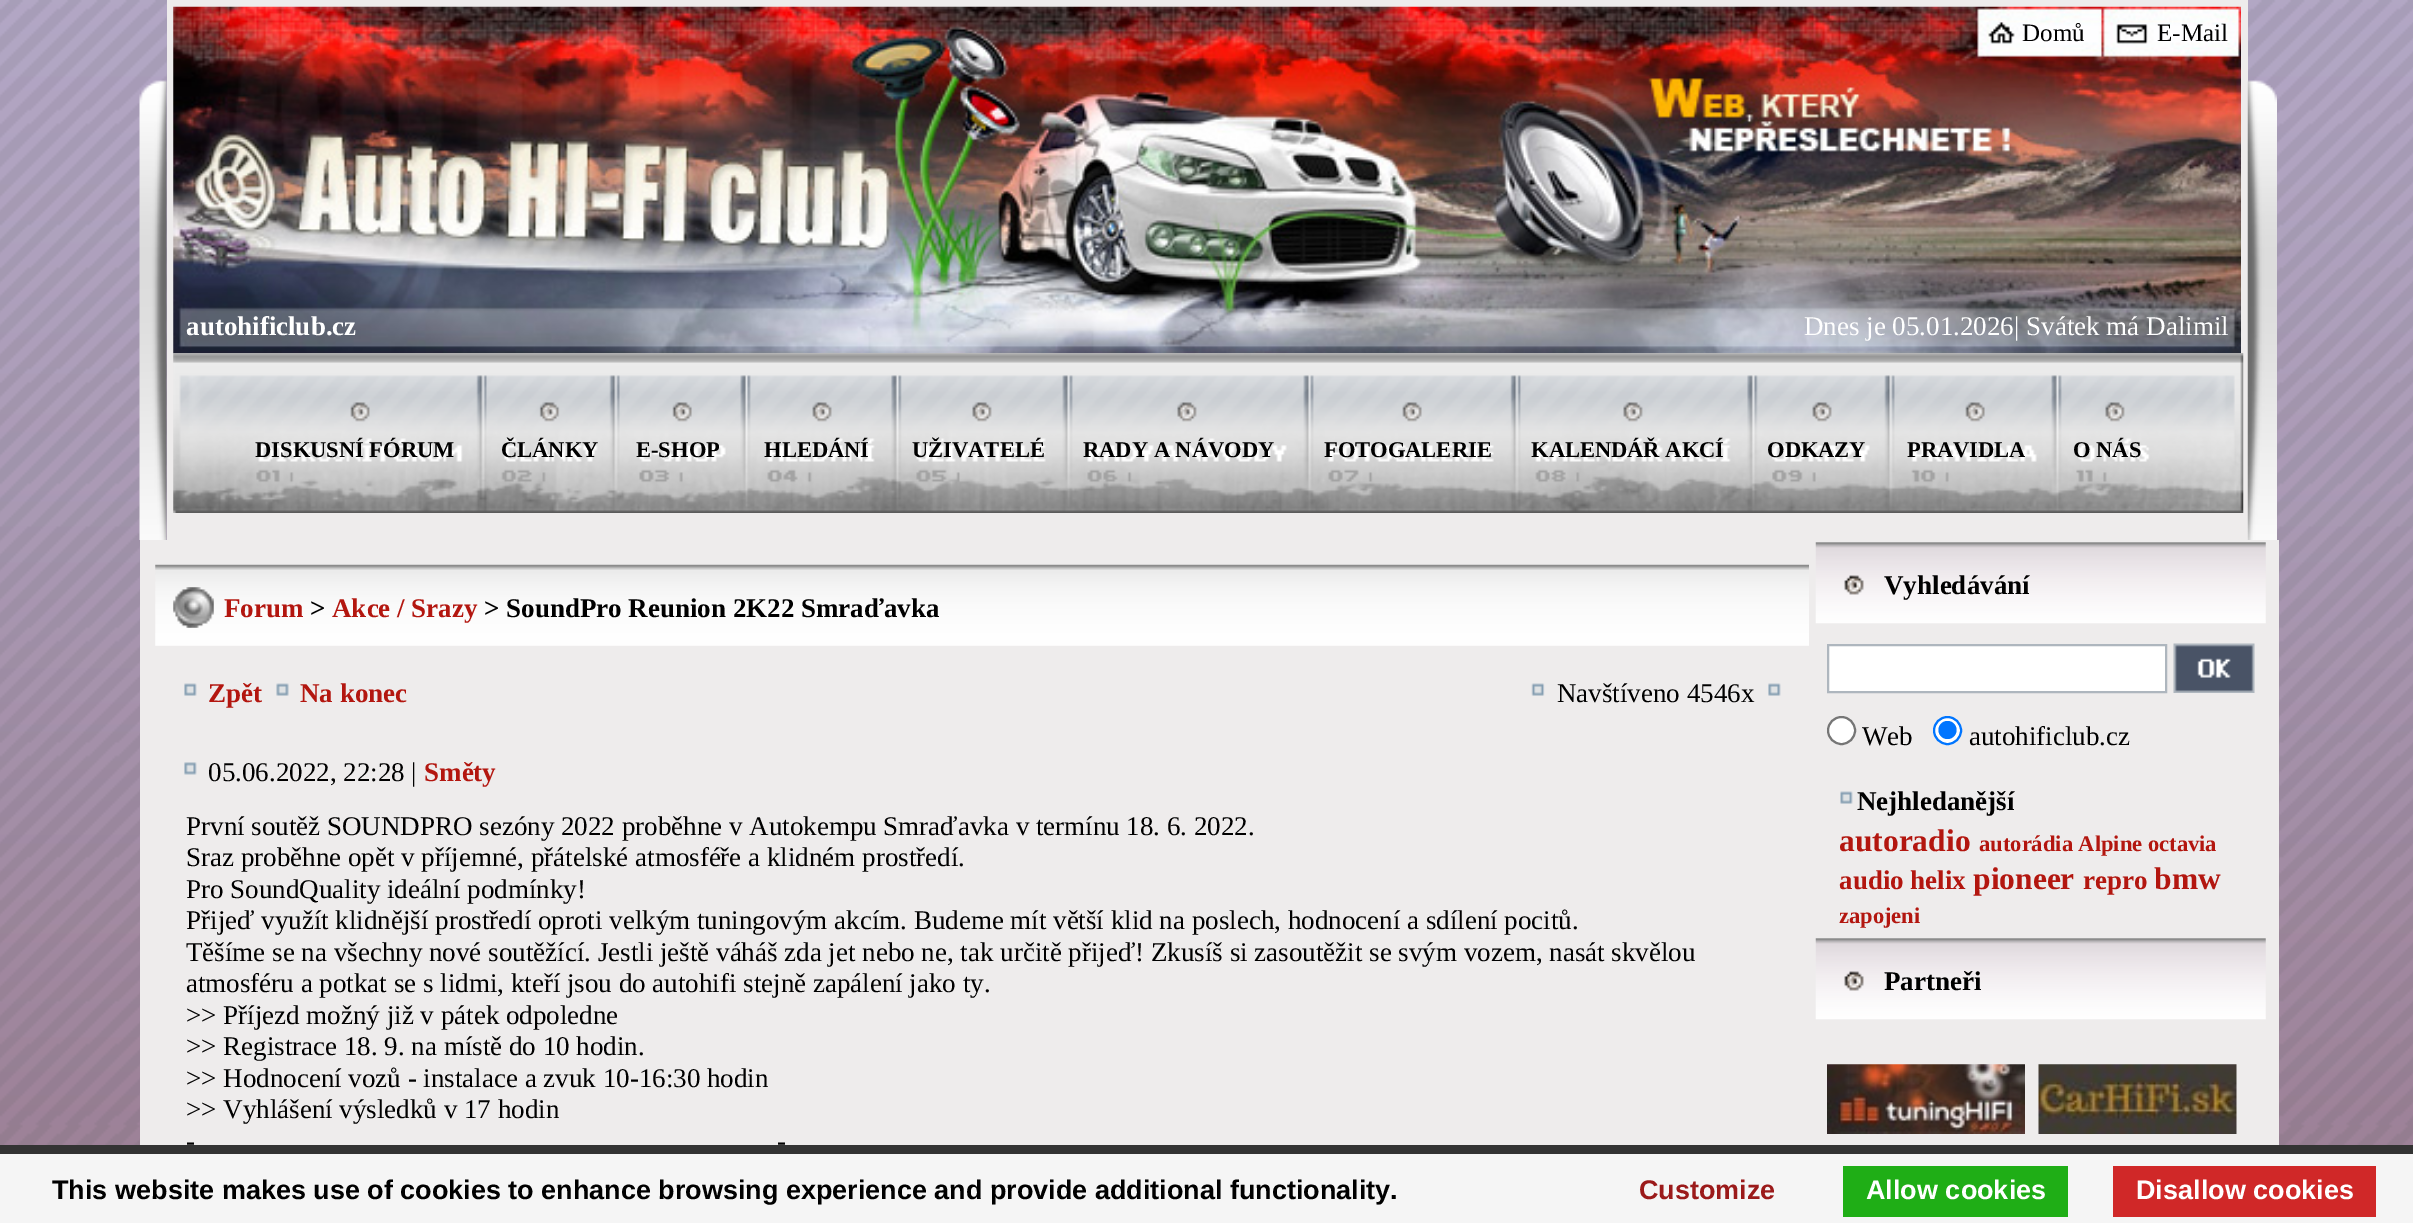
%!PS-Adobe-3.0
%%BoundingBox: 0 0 2413 1223
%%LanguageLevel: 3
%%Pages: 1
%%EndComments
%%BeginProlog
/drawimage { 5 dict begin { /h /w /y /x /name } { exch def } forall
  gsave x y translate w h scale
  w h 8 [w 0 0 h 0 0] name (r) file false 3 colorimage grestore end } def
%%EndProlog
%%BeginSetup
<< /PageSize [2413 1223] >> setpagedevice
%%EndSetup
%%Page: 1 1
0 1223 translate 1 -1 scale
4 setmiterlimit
1 setgray
0 0 2413 1223 rectfill
(images/1.raw) 0 0 2413 1145 drawimage
(images/2.raw) 139 80 28 460 drawimage
0.933 0.925 0.925 setrgbcolor
167 0 2081 540 rectfill
(images/3.raw) 173 6 2068 348 drawimage
(images/4.raw) 173 353 2071 160 drawimage
(images/5.raw) 2247 80 30 460 drawimage
140 540 2139 605 rectfill
(images/6.raw) 155 564 1654 82 drawimage
(images/7.raw) 173 587 41 41 drawimage
(images/8.raw) 184 683 13 13 drawimage
(images/9.raw) 276 683 13 13 drawimage
(images/10.raw) 1531 683 14 13 drawimage
(images/8.raw) 1768 683 13 13 drawimage
(images/11.raw) 184 762 13 13 drawimage
(images/12.raw) 1815 542 451 82 drawimage
(images/13.raw) 1844 575 20 20 drawimage
1 setgray
newpath 1828 645 moveto 2166 645 lineto 2166 692 lineto 1828 692 lineto closepath gsave fill grestore
0.682 0.714 0.745 setrgbcolor
2 setlinewidth
stroke
(images/14.raw) 2173 643 82 50 drawimage
1 setgray
newpath 1841.5 730.5 13.5 0 360 arc closepath gsave fill grestore
0.463 setgray
stroke
1 setgray
newpath 1947.5 730.5 13.5 0 360 arc closepath gsave fill grestore
0 0.459 1 setrgbcolor
stroke
newpath 1947.5 730 9 0 360 arc closepath fill
(images/15.raw) 1840 791 13 13 drawimage
(images/12.raw) 1815 938 451 82 drawimage
(images/16.raw) 1844 971 20 20 drawimage
(images/17.raw) 1827 1064 198 70 drawimage
(images/18.raw) 2038 1064 199 70 drawimage
0.961 setgray
0 1154 2413 69 rectfill
0.2 setgray
0 1145 2413 9 rectfill
0.122 0.682 0.086 setrgbcolor
1843 1166 225 51 rectfill
0.816 0.157 0.157 setrgbcolor
2113 1166 263 51 rectfill
/LiberationSerif-Regular [25 0 0 -25 0 0] selectfont
0 setgray
2022 41 moveto (Domů) show
2157 41 moveto (E-Mail) show
/LiberationSerif-Bold [27 0 0 -27 0 0] selectfont
1 setgray
186 335 moveto (autohificlub.cz) show
/LiberationSerif-Regular [27 0 0 -27 0 0] selectfont
1804 335 moveto (Dnes je 05.01.2026| Svátek má Dalimil) show
/LiberationSerif-Bold [22.5 0 0 -22.5 0 0] selectfont
0 setgray
255 457 moveto (DISKUSNÍ FÓRUM) show
501 457 moveto (ČLÁNKY) show
636 457 moveto (E-SHOP) show
764 457 moveto (HLEDÁNÍ) show
912 457 moveto (UŽIVATELÉ) show
1083 457 moveto (RADY A NÁVODY) show
1324 457 moveto (FOTOGALERIE) show
1531 457 moveto (KALENDÁŘ AKCÍ) show
1767 457 moveto (ODKAZY) show
1907 457 moveto (PRAVIDLA) show
2073 457 moveto (O NÁS) show
/LiberationSerif-Bold [27 0 0 -27 0 0] selectfont
0.702 0.086 0.059 setrgbcolor
224 617 moveto (Forum) show
0 setgray
310 617 moveto (>) show
0.702 0.086 0.059 setrgbcolor
332 617 moveto (Akce / Srazy) show
0 setgray
484 617 moveto (> SoundPro Reunion 2K22 Smraďavka) show
0.702 0.086 0.059 setrgbcolor
208 702 moveto (Zpět) show
300 702 moveto (Na konec) show
/LiberationSerif-Regular [27 0 0 -27 0 0] selectfont
0 setgray
1557 702 moveto (Navštíveno 4546x) show
208 781 moveto (05.06.2022, 22:28 |) show
/LiberationSerif-Bold [27 0 0 -27 0 0] selectfont
0.702 0.086 0.059 setrgbcolor
424 781 moveto (Směty) show
/LiberationSerif-Regular [27 0 0 -27 0 0] selectfont
0 setgray
186 835 moveto (První soutěž SOUNDPRO sezóny 2022 proběhne v Autokempu Smraďavka v termínu 18. 6. 2022.) show
186 866 moveto (Sraz proběhne opět v příjemné, přátelské atmosféře a klidném prostředí.) show
186 898 moveto (Pro SoundQuality ideální podmínky!) show
186 929 moveto (Přijeď využít klidnější prostředí oproti velkým tuningovým akcím. Budeme mít větší klid na poslech, hodnocení a sdílení pocitů.) show
186 961 moveto (Těšíme se na všechny nové soutěžící. Jestli ještě váháš zda jet nebo ne, tak určitě přijeď! Zkusíš si zasoutěžit se svým vozem, nasát skvělou) show
186 992 moveto (atmosféru a potkat se s lidmi, kteří jsou do autohifi stejně zapálení jako ty.) show
186 1024 moveto (>> Příjezd možný již v pátek odpoledne) show
186 1055 moveto (>> Registrace 18. 9. na místě do 10 hodin.) show
186 1087 moveto (>> Hodnocení vozů - instalace a zvuk 10-16:30 hodin) show
186 1118 moveto (>> Vyhlášení výsledků v 17 hodin) show
186 1150 moveto (-) show
777 1150 moveto (-) show
/LiberationSerif-Bold [27 0 0 -27 0 0] selectfont
1884 594 moveto (Vyhledávání) show
/LiberationSerif-Regular [27 0 0 -27 0 0] selectfont
1862 745 moveto (Web) show
1969 745 moveto (autohificlub.cz) show
/LiberationSerif-Bold [27 0 0 -27 0 0] selectfont
1857 810 moveto (Nejhledanější) show
/LiberationSerif-Bold [31.5 0 0 -31.5 0 0] selectfont
0.702 0.086 0.059 setrgbcolor
1839 851 moveto (autoradio) show
/LiberationSerif-Bold [22.5 0 0 -22.5 0 0] selectfont
1979 851 moveto (autorádia Alpine) show
2148 851 moveto (octavia) show
/LiberationSerif-Bold [27 0 0 -27 0 0] selectfont
1839 889 moveto (audio helix) show
/LiberationSerif-Bold [31.5 0 0 -31.5 0 0] selectfont
1973 889 moveto (pioneer) show
/LiberationSerif-Bold [27 0 0 -27 0 0] selectfont
2083 889 moveto (repro) show
/LiberationSerif-Bold [31.5 0 0 -31.5 0 0] selectfont
2154 889 moveto (bmw) show
/LiberationSerif-Bold [22.5 0 0 -22.5 0 0] selectfont
1839 923 moveto (zapojeni) show
/LiberationSerif-Bold [27 0 0 -27 0 0] selectfont
0 setgray
1884 990 moveto (Partneři) show
/LiberationSans-Bold [27 0 0 -27 0 0] selectfont
52 1199 moveto (This website makes use of cookies to enhance browsing experience and provide additional functionality.) show
0.608 0.102 0.102 setrgbcolor
1639 1199 moveto (Customize) show
1 setgray
1866 1199 moveto (Allow cookies) show
2136 1199 moveto (Disallow cookies) show
showpage
%%EOF
